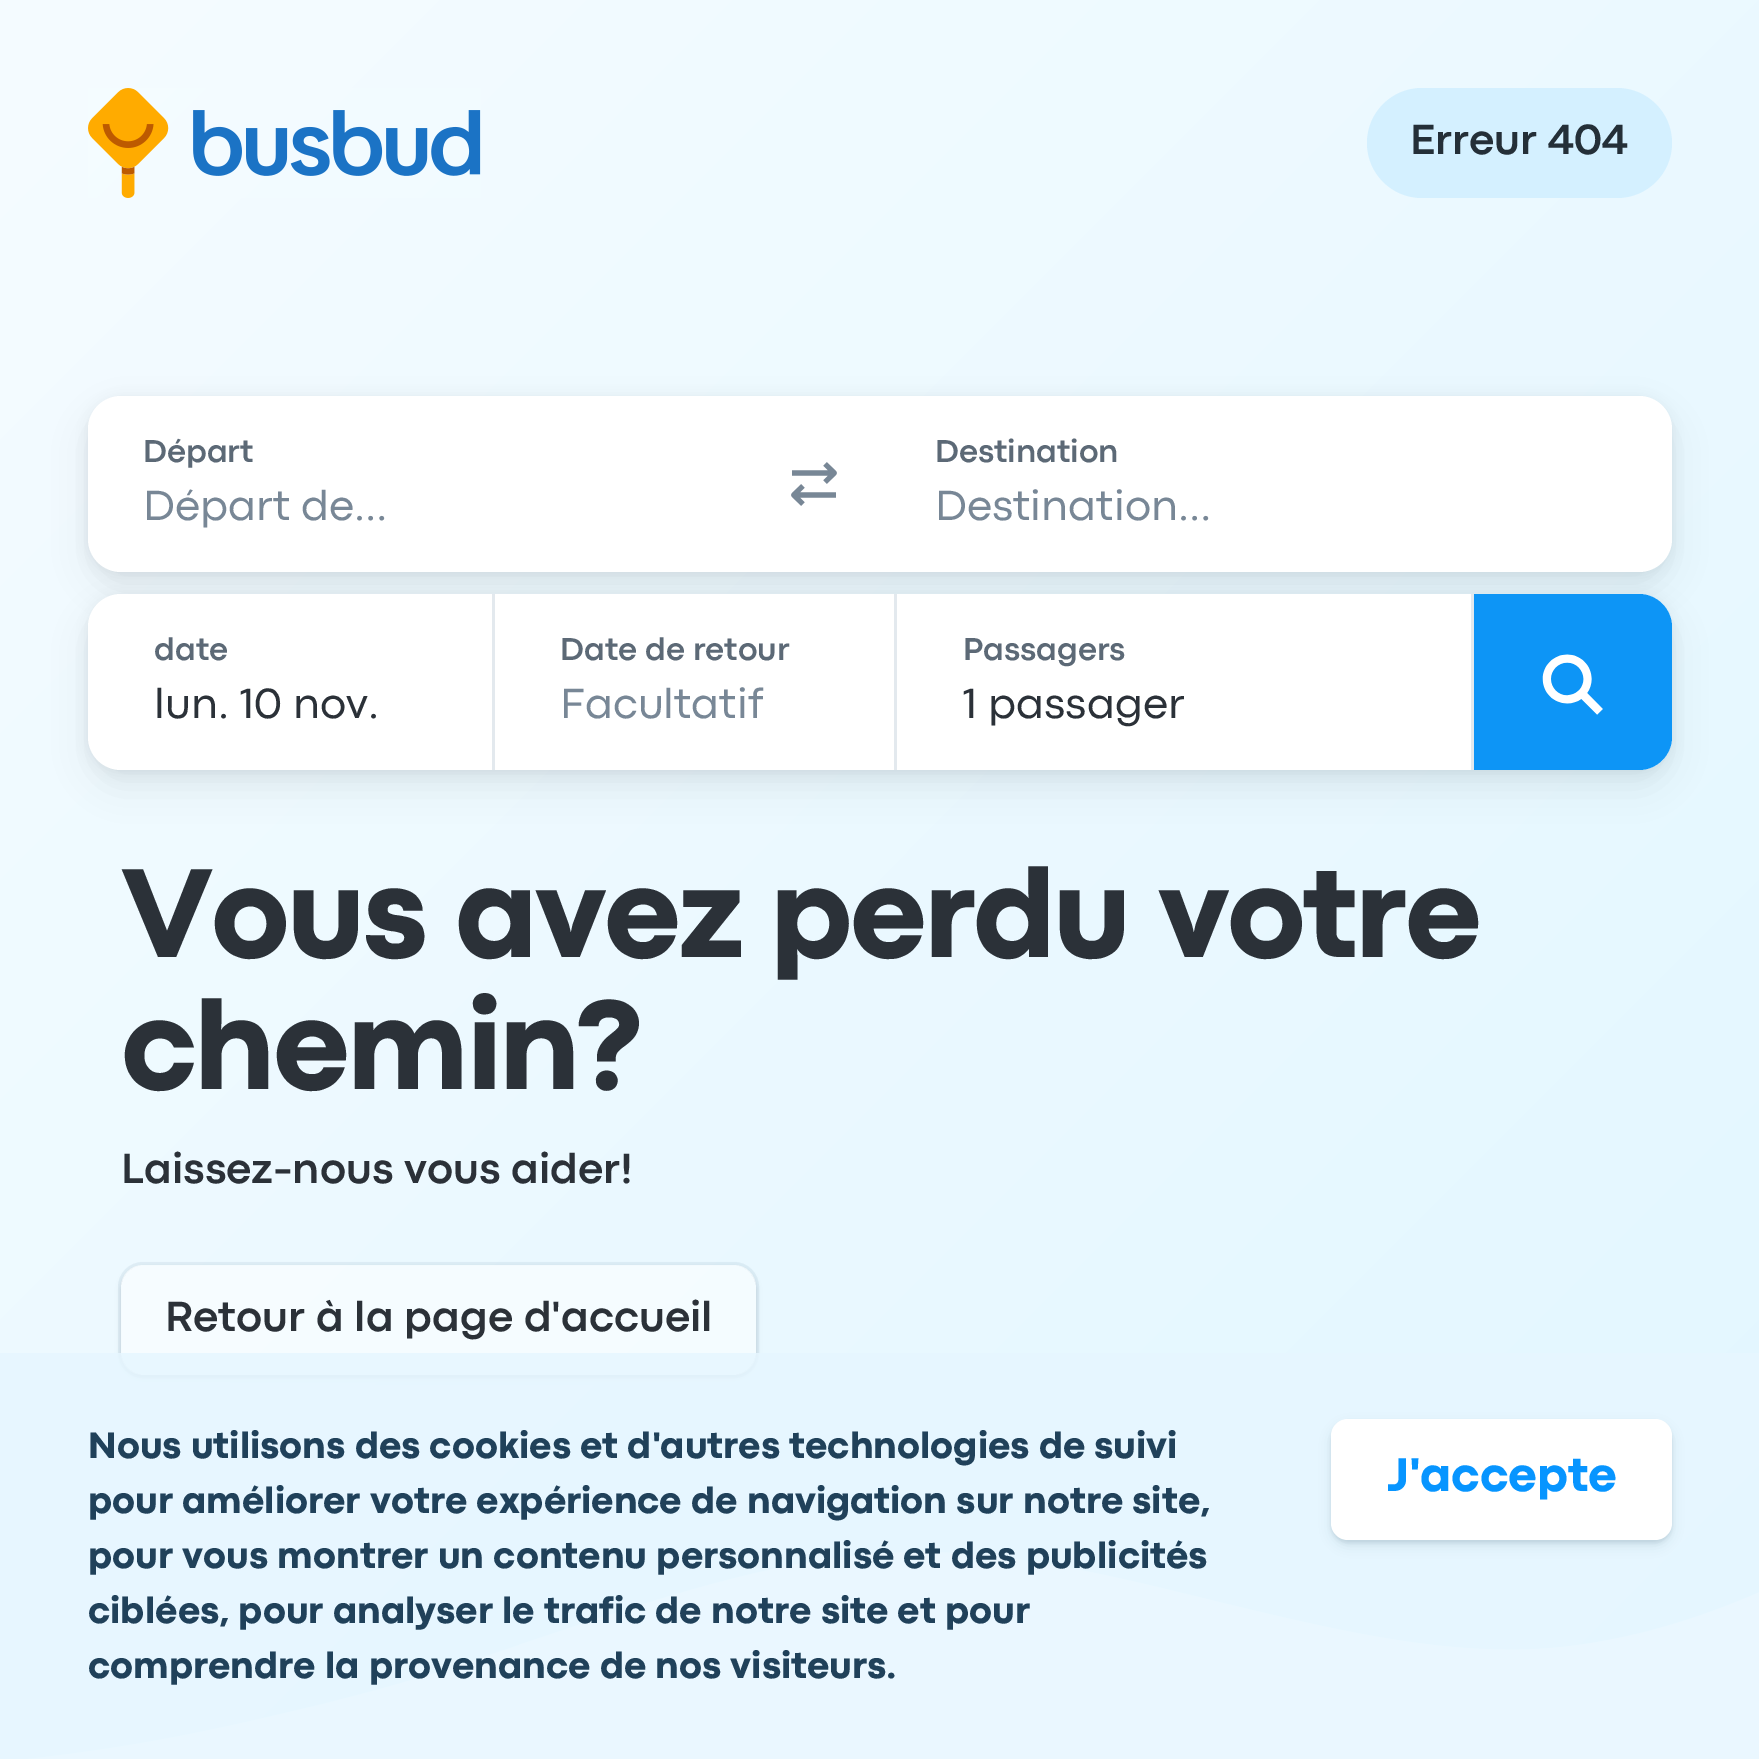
%!PS-Adobe-3.0
%%BoundingBox: 0 0 1759 1759
%%LanguageLevel: 3
%%Pages: 1
%%EndComments
%%BeginProlog
/setalpha { dup .setfillconstantalpha .setstrokeconstantalpha } def
/rrect { 5 dict begin { /r /h /w /y /x } { exch def } forall
  x r add y moveto x w add y 2 copy h add r arct x w add y h add x 1 index r arct
  x y h add x y r arct x y 2 copy exch w add exch r arct closepath end } def
/softshadow { 12 dict begin { /a /b /q /h /w /y /x } { exch def } forall gsave /was 0 def
  9 -2 -9 { dup b mul 4 div /e exch def 1 sub .425 mul 2.718 exch exp 1 add a .99 .min exch div /now exch def
    1 1 now sub 1 was sub div sub setalpha /was now def
    w h .min e 2 mul add 0 gt { x e sub y e sub w e 2 mul add h e 2 mul add
      q e add b .6 mul add w h .min 2 div e add .min 0 .max rrect fill } if } for grestore end } def
/drawimage { 5 dict begin { /h /w /y /x /name } { exch def } forall
  gsave x y translate w h scale
  w h 8 [w 0 0 h 0 0] name (r) file false 3 colorimage grestore end } def
%%EndProlog
%%BeginSetup
<< /PageSize [1759 1759] /PageUsesTransparency true >> setpagedevice
%%EndSetup
%%Page: 1 1
0 .pushpdf14devicefilter
0 1759 translate 1 -1 scale
4 setmiterlimit
1 setgray
0 0 1759 1759 rectfill
gsave newpath 0 0 moveto 1759 0 lineto 1759 1759 lineto 0 1759 lineto closepath clip newpath
<< /ShadingType 2 /ColorSpace /DeviceRGB /Coords [-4.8 4.8 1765 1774] /Extend [true true] /Function << /FunctionType 2 /Domain [0 1] /C0 [0.961 0.988 1] /C1 [0.882 0.965 1] /N 1 >> >> shfill grestore
(images/1.raw) 88 88 393 110 drawimage
0.831 0.941 1 setrgbcolor
1367 88 305 110 55 rrect fill
0.263 0.302 0.337 setrgbcolor
88 413 1584 176 33 16.5 0.1 softshadow
88 399 1584 176 33 5.5 0.1 softshadow
1 setgray
88 396 1584 176 33 rrect fill
(images/2.raw) 791 462 46 44 drawimage
0.263 0.302 0.337 setrgbcolor
88 611 1584 176 33 16.5 0.1 softshadow
88 597 1584 176 33 5.5 0.1 softshadow
1 setgray
88 594 1584 176 33 rrect fill
0.89 0.914 0.933 setrgbcolor
894 594 3 176 rectfill
492 594 3 176 rectfill
1471 594 3 176 rectfill
0.95 setalpha
0 0.561 0.961 setrgbcolor
newpath 1474 594 moveto 1639 594 lineto 1657 594 1672 609 1672 627 curveto 1672 737 lineto 1672 755 1657 770 1639 770 curveto 1474 770 lineto closepath fill
1 setalpha
(images/3.raw) 1542 654 61 61 drawimage
gsave
newpath 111 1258 moveto 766 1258 lineto 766 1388 lineto 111 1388 lineto closepath 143 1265 moveto 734 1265 lineto 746 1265 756 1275 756 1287 curveto 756 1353 lineto 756 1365 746 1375 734 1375 curveto 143 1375 lineto 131 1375 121 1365 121 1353 curveto 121 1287 lineto 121 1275 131 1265 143 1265 curveto closepath eoclip newpath
0.263 0.302 0.337 setrgbcolor
121 1268 635 110 22 3 0.1 softshadow
grestore
gsave
newpath 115 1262 moveto 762 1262 lineto 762 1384 lineto 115 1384 lineto closepath 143 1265 moveto 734 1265 lineto 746 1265 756 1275 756 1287 curveto 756 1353 lineto 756 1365 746 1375 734 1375 curveto 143 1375 lineto 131 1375 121 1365 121 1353 curveto 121 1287 lineto 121 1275 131 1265 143 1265 curveto closepath eoclip newpath
0.263 0.302 0.337 setrgbcolor
121 1268 635 110 22 1.5 0.1 softshadow
grestore
0.1 setalpha
0.373 0.529 0.647 setrgbcolor
3 setlinewidth
119.5 1263.5 638 113 23.5 rrect stroke
0.5 setalpha
1 setgray
121 1265 635 110 22 rrect fill
1 setalpha
newpath 1535 1649 moveto 1614 1645 1691 1622 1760 1592 curveto 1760 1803 lineto 0 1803 lineto 0 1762 lineto 136 1748 214 1730 323 1704 curveto 350 1697 lineto 420 1679 470 1662 519 1645 curveto 584 1623 lineto 696 1587 808 1551 927 1552 curveto 1020 1553 1118 1577 1215 1601 curveto 1323 1627 1432 1654 1535 1649 curveto closepath eofill
0.85 setalpha
0.902 0.965 1 setrgbcolor
0 1353 1759 406 rectfill
1 setalpha
0.125 0.255 0.353 setrgbcolor
1331 1425 341 121 17 5.5 0.1 softshadow
1331 1422 341 121 17 1.5 0.1 softshadow
1 setgray
1331 1419 341 121 17 rrect fill
/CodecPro-Bold [44 0 0 -44 0 0] selectfont
0.141 0.184 0.22 setrgbcolor
1410 154 moveto (Erreur 404) show
/CodecPro-Bold [33 0 0 -33 0 0] selectfont
0.361 0.412 0.463 setrgbcolor
143 462 moveto (Départ) show
/CodecPro-Regular [44 0 0 -44 0 0] selectfont
0.471 0.529 0.588 setrgbcolor
143 520 moveto (Départ de…) show
/CodecPro-Bold [33 0 0 -33 0 0] selectfont
0.361 0.412 0.463 setrgbcolor
935 462 moveto (Destination) show
/CodecPro-Regular [44 0 0 -44 0 0] selectfont
0.471 0.529 0.588 setrgbcolor
935 520 moveto (Destination…) show
/CodecPro-Bold [33 0 0 -33 0 0] selectfont
0.361 0.412 0.463 setrgbcolor
154 660 moveto (date) show
/CodecPro-Regular [44 0 0 -44 0 0] selectfont
0.169 0.192 0.22 setrgbcolor
154 718 moveto (lun. 10 nov.) show
/CodecPro-Bold [33 0 0 -33 0 0] selectfont
0.361 0.412 0.463 setrgbcolor
560 660 moveto (Date de retour) show
/CodecPro-Regular [44 0 0 -44 0 0] selectfont
0.471 0.529 0.588 setrgbcolor
560 718 moveto (Facultatif) show
/CodecPro-Bold [33 0 0 -33 0 0] selectfont
0.361 0.412 0.463 setrgbcolor
963 660 moveto (Passagers) show
/CodecPro-Regular [44 0 0 -44 0 0] selectfont
0.169 0.192 0.22 setrgbcolor
963 718 moveto (1 passager) show
/CodecPro-ExtraBold [132 0 0 -132 0 0] selectfont
121 957 moveto -2.6 0 (Vous avez perdu votre) ashow
121 1089 moveto -2.6 0 (chemin?) ashow
/CodecPro-Bold [44 0 0 -44 0 0] selectfont
121 1183 moveto (Laissez-nous vous aider!) show
165 1331 moveto (Retour à la page d'accueil) show
/CodecPro-ExtraBold [38.5 0 0 -38.5 0 0] selectfont
0.125 0.255 0.353 setrgbcolor
88 1458 moveto (Nous utilisons des cookies et d'autres technologies de suivi) show
88 1513 moveto (pour améliorer votre expérience de navigation sur notre site,) show
88 1568 moveto (pour vous montrer un contenu personnalisé et des publicités) show
88 1623 moveto (ciblées, pour analyser le trafic de notre site et pour) show
88 1678 moveto (comprendre la provenance de nos visiteurs.) show
/CodecPro-ExtraBold [49.5 0 0 -49.5 0 0] selectfont
0.027 0.584 1 setrgbcolor
1387 1491 moveto (J'accepte) show
.poppdf14devicefilter showpage
%%EOF
